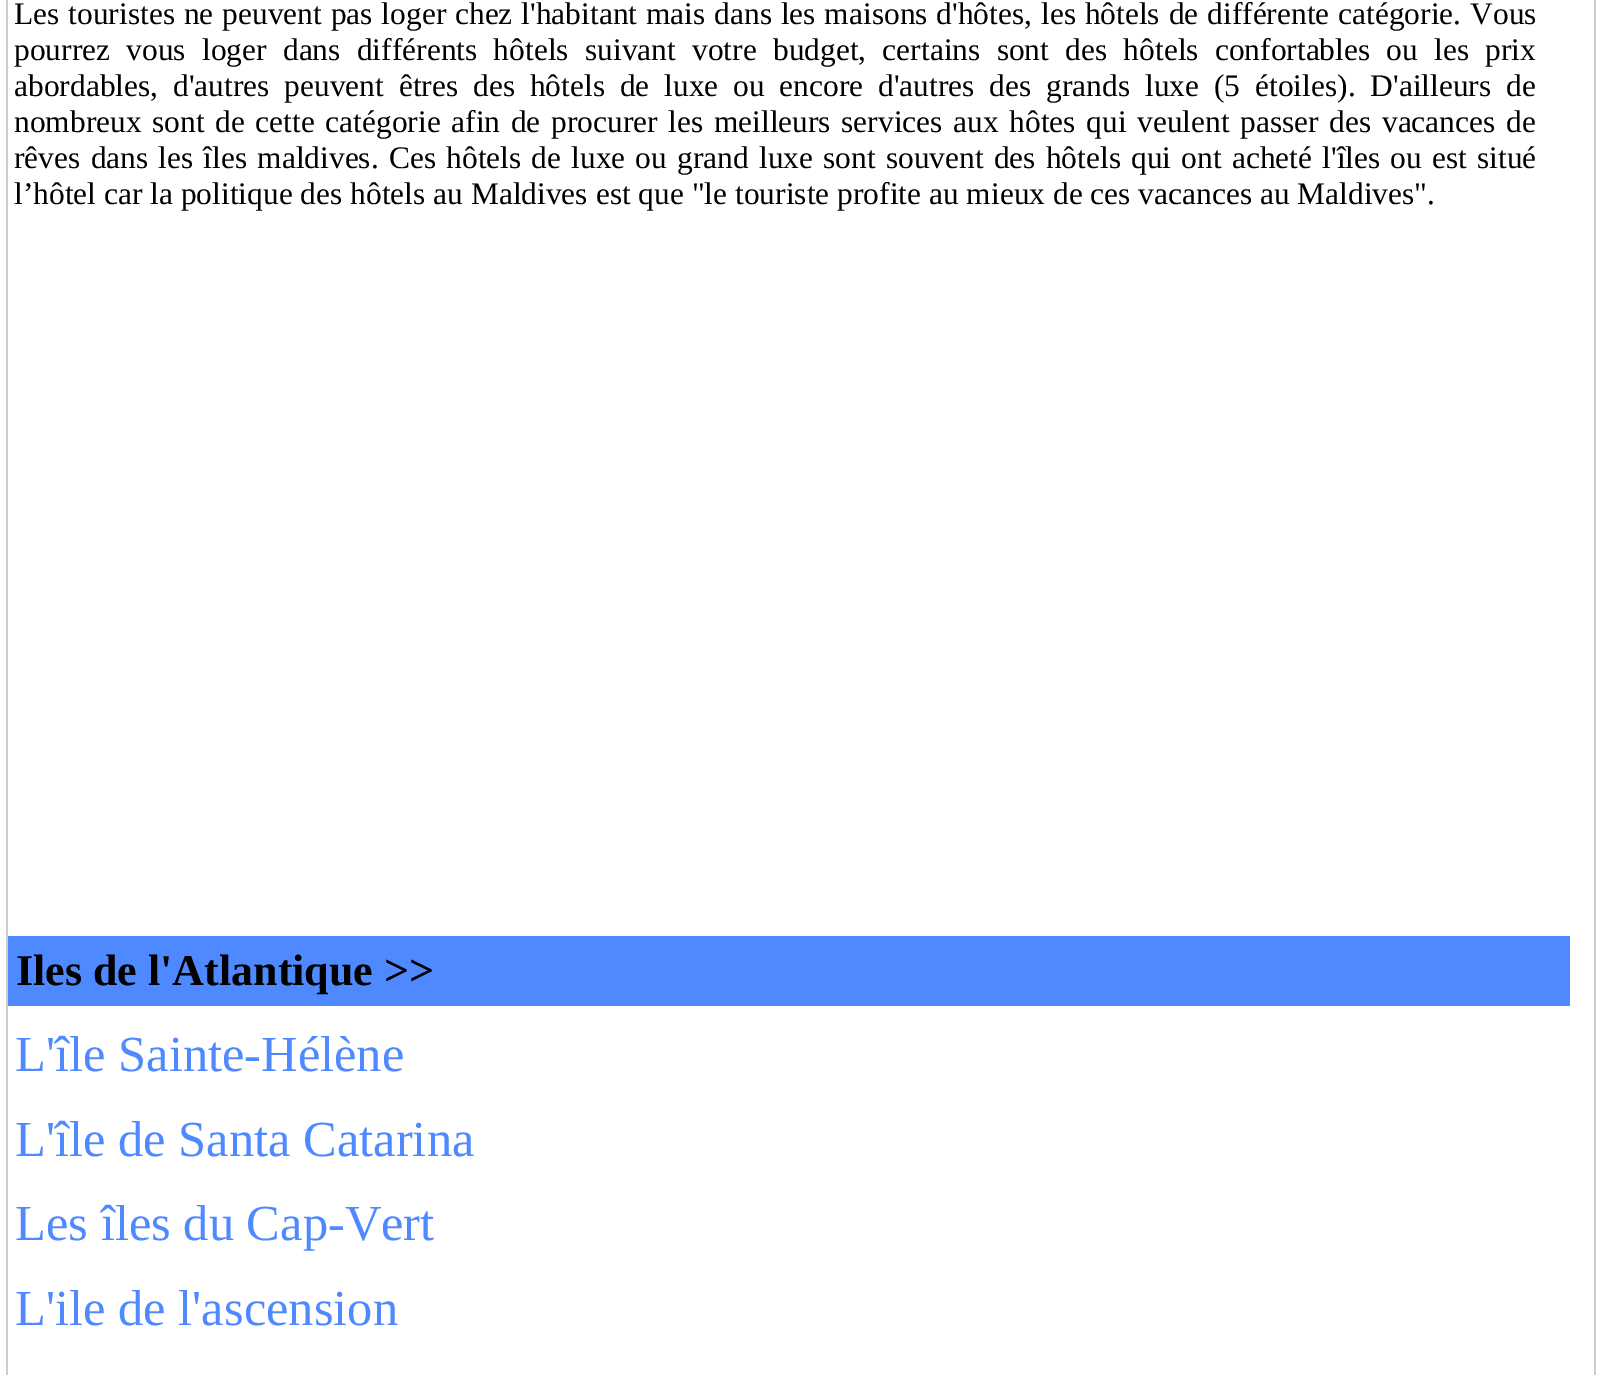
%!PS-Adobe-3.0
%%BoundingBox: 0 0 1601 1375
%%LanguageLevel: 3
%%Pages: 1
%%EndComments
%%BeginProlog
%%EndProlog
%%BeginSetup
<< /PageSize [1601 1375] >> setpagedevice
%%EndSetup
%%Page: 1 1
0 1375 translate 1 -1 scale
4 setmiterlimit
1 setgray
0 0 1601 1375 rectfill
0.8 setgray
1594 0 2 1375 rectfill
6 0 2 1375 rectfill
0.31 0.537 1 setrgbcolor
8 936 1562 70 rectfill
/LiberationSerif-Regular [31.45 0 0 -31.45 0 0] selectfont
0 setgray
14 24 moveto 1 0 32 (Les touristes ne peuvent pas loger chez l'habitant mais dans les maisons d'hôtes, les hôtels de différente catégorie. Vous) widthshow
14 60 moveto 8.4 0 32 (pourrez vous loger dans différents hôtels suivant votre budget, certains sont des hôtels confortables ou les prix) widthshow
14 96 moveto 7 0 32 (abordables, d'autres peuvent êtres des hôtels de luxe ou encore d'autres des grands luxe \(5 étoiles\). D'ailleurs de) widthshow
14 132 moveto 2.75 0 32 (nombreux sont de cette catégorie afin de procurer les meilleurs services aux hôtes qui veulent passer des vacances de) widthshow
14 168 moveto 2.3 0 32 (rêves dans les îles maldives. Ces hôtels de luxe ou grand luxe sont souvent des hôtels qui ont acheté l'îles ou est situé) widthshow
14 204 moveto (l’hôtel car la politique des hôtels au Maldives est que "le touriste profite au mieux de ces vacances au Maldives".) show
/LiberationSerif-Bold [44 0 0 -44 0 0] selectfont
16 985 moveto (Iles de l'Atlantique >>) show
/LiberationSerif-Regular [50.5 0 0 -50.5 0 0] selectfont
0.31 0.537 1 setrgbcolor
15 1071 moveto (L'île Sainte-Hélène) show
15 1156 moveto (L'île de Santa Catarina) show
15 1240 moveto (Les îles du Cap-Vert) show
15 1325 moveto (L'ile de l'ascension) show
showpage
%%EOF
